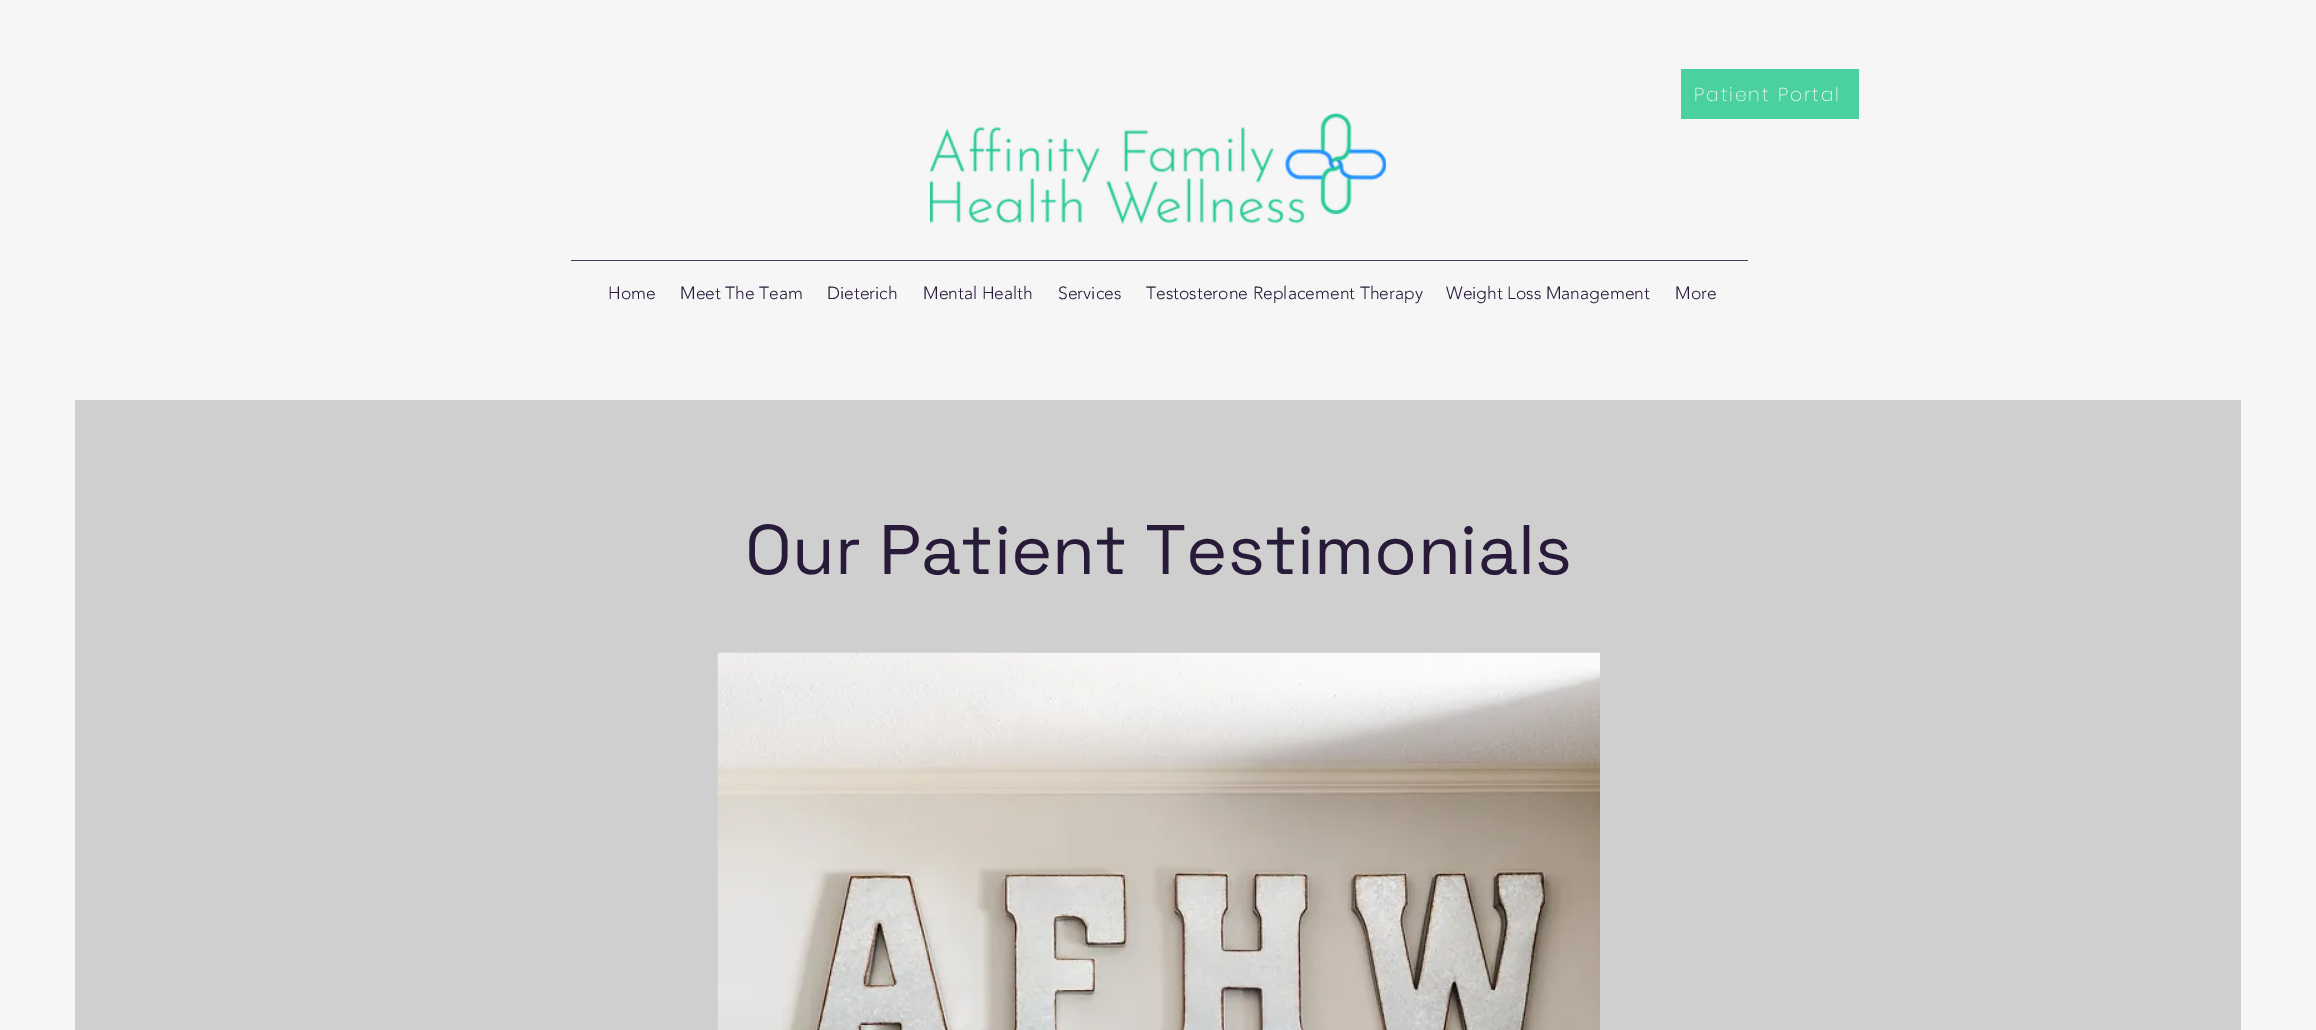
%!PS-Adobe-3.0
%%BoundingBox: 0 0 2316 1030
%%LanguageLevel: 3
%%Pages: 1
%%EndComments
%%BeginProlog
/drawimage { 5 dict begin { /h /w /y /x /name } { exch def } forall
  gsave x y translate w h scale
  w h 8 [w 0 0 h 0 0] name (r) file false 3 colorimage grestore end } def
%%EndProlog
%%BeginSetup
<< /PageSize [2316 1030] >> setpagedevice
%%EndSetup
%%Page: 1 1
0 1030 translate 1 -1 scale
4 setmiterlimit
0.965 setgray
0 0 2316 1030 rectfill
0.294 0.82 0.627 setrgbcolor
1681 69 178 50 rectfill
(images/1.raw) 930 113 457 111 drawimage
0.278 0.231 0.333 setrgbcolor
571 260 1177 1 rectfill
0.812 setgray
75 400 2166 630 rectfill
(images/2.raw) 717 652 883 378 drawimage
/Poppins-ExtraLight [18.75 0 0 -18.75 0 0] selectfont
0.965 setgray
1694 101 moveto 1.9 0 (Patient Portal) ashow
/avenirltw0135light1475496-Light [17.5 0 0 -17.5 0 0] selectfont
0.157 0.102 0.224 setrgbcolor
608 299 moveto (Home) show
680 299 moveto (Meet The Team) show
827 299 moveto (Dieterich) show
923 299 moveto (Mental Health) show
1058 299 moveto (Services) show
1146 299 moveto (Testosterone Replacement Therapy) show
1446 299 moveto (Weight Loss Management) show
1675 299 moveto (More) show
/SpaceGrotesk-Regular [70 0 0 -70 0 0] selectfont
745 574 moveto (Our Patient Testimonials) show
showpage
%%EOF
